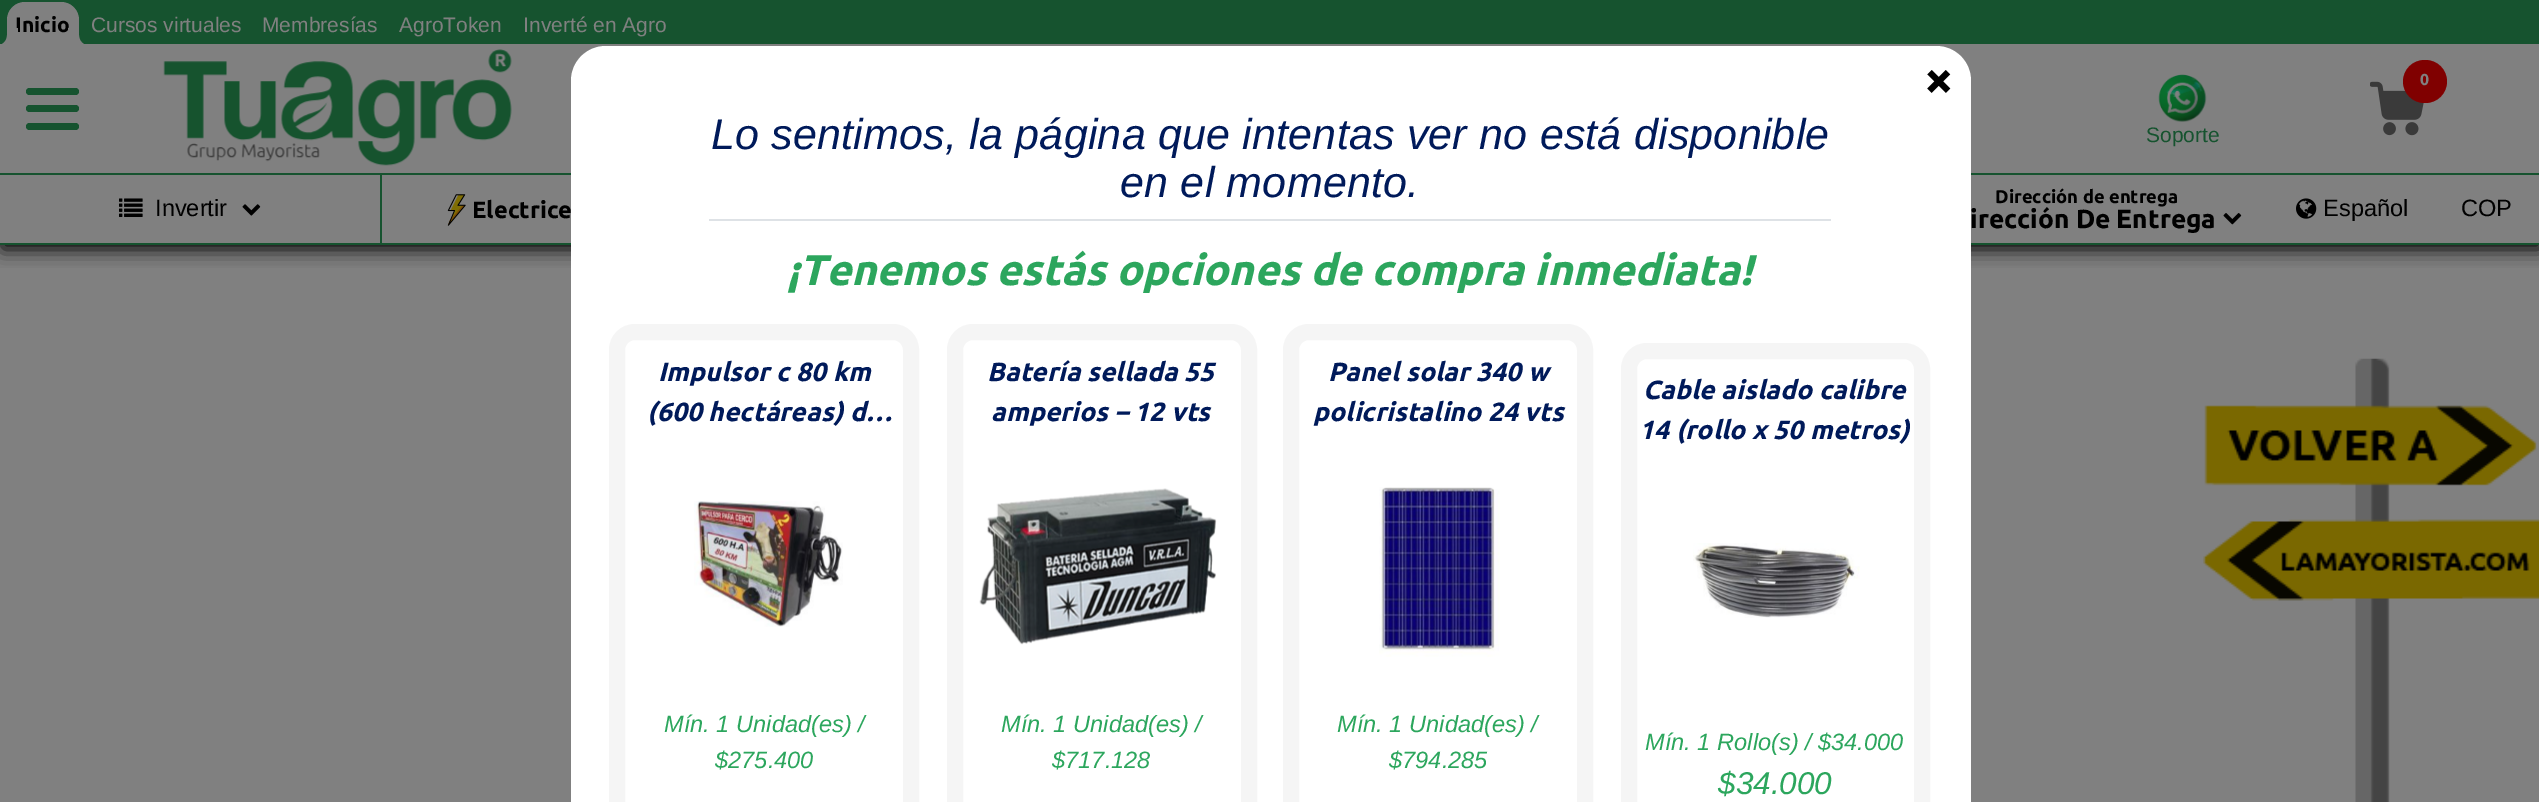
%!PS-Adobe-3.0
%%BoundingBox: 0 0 2539 802
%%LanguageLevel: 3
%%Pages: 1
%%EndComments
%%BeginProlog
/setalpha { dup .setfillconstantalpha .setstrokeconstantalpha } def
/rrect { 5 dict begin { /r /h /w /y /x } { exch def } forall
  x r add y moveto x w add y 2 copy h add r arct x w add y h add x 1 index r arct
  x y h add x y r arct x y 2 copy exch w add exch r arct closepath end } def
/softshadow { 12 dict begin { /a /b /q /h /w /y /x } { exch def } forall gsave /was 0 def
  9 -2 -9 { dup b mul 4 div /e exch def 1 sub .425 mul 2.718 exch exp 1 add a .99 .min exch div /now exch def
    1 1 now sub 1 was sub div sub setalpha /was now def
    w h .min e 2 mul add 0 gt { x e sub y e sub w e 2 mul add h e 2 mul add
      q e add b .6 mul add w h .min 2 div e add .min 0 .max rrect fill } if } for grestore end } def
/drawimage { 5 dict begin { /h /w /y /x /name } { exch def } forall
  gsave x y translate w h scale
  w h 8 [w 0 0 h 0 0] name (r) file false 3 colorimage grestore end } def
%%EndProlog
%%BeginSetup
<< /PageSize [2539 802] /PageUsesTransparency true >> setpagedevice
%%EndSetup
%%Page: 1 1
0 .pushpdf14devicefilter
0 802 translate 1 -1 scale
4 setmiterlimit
0.502 setgray
0 0 2539 802 rectfill
0.086 0.325 0.184 setrgbcolor
0 0 2539 44 rectfill
0.502 setgray
newpath 25 2 moveto 61 2 lineto 71 2 79 10 79 20 curveto 79 46 lineto 7 46 lineto 7 20 lineto 7 10 15 2 25 2 curveto closepath fill
(images/5.raw) 2203 358 336 444 drawimage
gsave
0 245 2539 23 rectclip
0 setgray
2 179 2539 70 0 9.5 1 softshadow
grestore
0 160 2539 13 rectfill
0.086 0.325 0.184 setrgbcolor
0 173 2539 2 rectfill
26 88 53 7 3.5 rrect fill
26 105 53 7 3.5 rrect fill
26 123 53 7 3.5 rrect fill
(images/6.raw) 163 49 349 117 drawimage
(images/7.raw) 2370 81 54 55 drawimage
0.502 0 0 setrgbcolor
2403 60 44 43 21.5 rrect fill
(images/8.raw) 2158 74 49 48 drawimage
0.086 0.325 0.184 setrgbcolor
0 243 2539 2 rectfill
380 175 2 68 rectfill
(images/9.raw) 119 198 24 19 drawimage
(images/10.raw) 242 204 19 12 drawimage
(images/11.raw) 447 194 19 32 drawimage
(images/12.raw) 2223 213 19 12 drawimage
(images/13.raw) 2296 198 21 21 drawimage
/Ubuntu-Bold [21 0 0 -21 0 0] selectfont
0 setgray
15 32 moveto (Inicio) show
0.502 setgray
newpath -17 45.5 moveto -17 46 lineto 7 46 lineto 13 46 18 41 18 35 curveto 18 28 lineto 7 28 lineto 7 35 lineto 7 41 2.5 45.5 -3.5 45.5 curveto closepath fill
newpath 68 28 moveto 68 35 lineto 68 41 73 46 79 46 curveto 103 46 lineto 103 45.5 lineto 89 45.5 lineto 83.5 45.5 79 41 79 35 curveto 79 28 lineto closepath fill
/LiberationSans-Regular [21 0 0 -21 0 0] selectfont
91 32 moveto (Cursos virtuales) show
262 32 moveto (Membresías) show
399 32 moveto (AgroToken) show
523 32 moveto (Inverté en Agro) show
/Ubuntu-Bold [16 0 0 -16 0 0] selectfont
2420 85 moveto (0) show
/LiberationSans-Regular [21 0 0 -21 0 0] selectfont
0.086 0.325 0.184 setrgbcolor
2146 142 moveto (Soporte) show
/LiberationSans-Regular [23.6 0 0 -23.6 0 0] selectfont
0 setgray
155 216 moveto (Invertir) show
/Ubuntu-Bold [23.6 0 0 -23.6 0 0] selectfont
472 218 moveto (Electrice) show
1 setgray
newpath 606 46 moveto 1936 46 lineto 1955.5 46 1971 61.5 1971 81 curveto 1971 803 lineto 571 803 lineto 571 81 lineto 571 61.5 586.5 46 606 46 curveto closepath fill
0.961 setgray
16 setlinewidth
1629 351 293 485 18 rrect stroke
(images/4.raw) 1693 543 167 75 drawimage
1291 332 294 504 18 rrect stroke
(images/3.raw) 1379 487 121 170 drawimage
955 332 294 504 18 rrect stroke
(images/2.raw) 979 488 238 157 drawimage
617 332 294 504 18 rrect stroke
(images/1.raw) 694 501 149 126 drawimage
/LiberationSans-Italic [43.05 0 0 -43.05 0 0] selectfont
0 0.102 0.353 setrgbcolor
1120 197 moveto 0.18 0 (en el momento.) ashow
711 149 moveto 0.18 0 (Lo sentimos, la página que intentas ver no está disponible) ashow
0.871 0.886 0.902 setrgbcolor
709 219 1122 2 rectfill
/Ubuntu-BoldItalic [26.25 0 0 -26.25 0 0] selectfont
0 0.102 0.353 setrgbcolor
1639 439 moveto 0.18 0 (14 \(rollo x 50 metros\)) ashow
1643 399 moveto 0.18 0 (Cable aislado calibre) ashow
1313 421 moveto 0.18 0 (policristalino 24 vts) ashow
1328 381 moveto 0.18 0 (Panel solar 340 w) ashow
991 421 moveto 0.18 0 (amperios – 12 vts) ashow
987 381 moveto 0.18 0 (Batería sellada 55) ashow
647 421 moveto 0.18 0 (\(600 hectáreas\) d…) ashow
658 381 moveto 0.18 0 (Impulsor c 80 km) ashow
/LiberationSans-Italic [31.5 0 0 -31.5 0 0] selectfont
0.173 0.651 0.365 setrgbcolor
1718 794 moveto ($34.000) show
/LiberationSans-Italic [23.6 0 0 -23.6 0 0] selectfont
1645 750 moveto (Mín. 1 Rollo\(s\) / $34.000) show
1389 768 moveto ($794.285) show
1337 732 moveto (Mín. 1 Unidad\(es\) /) show
1052 768 moveto ($717.128) show
1001 732 moveto (Mín. 1 Unidad\(es\) /) show
715 768 moveto ($275.400) show
664 732 moveto (Mín. 1 Unidad\(es\) /) show
/Ubuntu-BoldItalic [43.05 0 0 -43.05 0 0] selectfont
787 285 moveto (¡Tenemos estás opciones de compra inmediata!) show
/Ubuntu-Bold [52 0 0 -52 0 0] selectfont
0 setgray
1924 97 moveto (×) show
/Ubuntu-Bold [18.4 0 0 -18.4 0 0] selectfont
1995 203 moveto (Dirección de entrega) show
/Ubuntu-Bold [26.25 0 0 -26.25 0 0] selectfont
1970 228 moveto (irección De Entrega) show
/LiberationSans-Regular [23.6 0 0 -23.6 0 0] selectfont
2323 216 moveto (Español) show
2461 216 moveto (COP) show
.poppdf14devicefilter showpage
%%EOF
